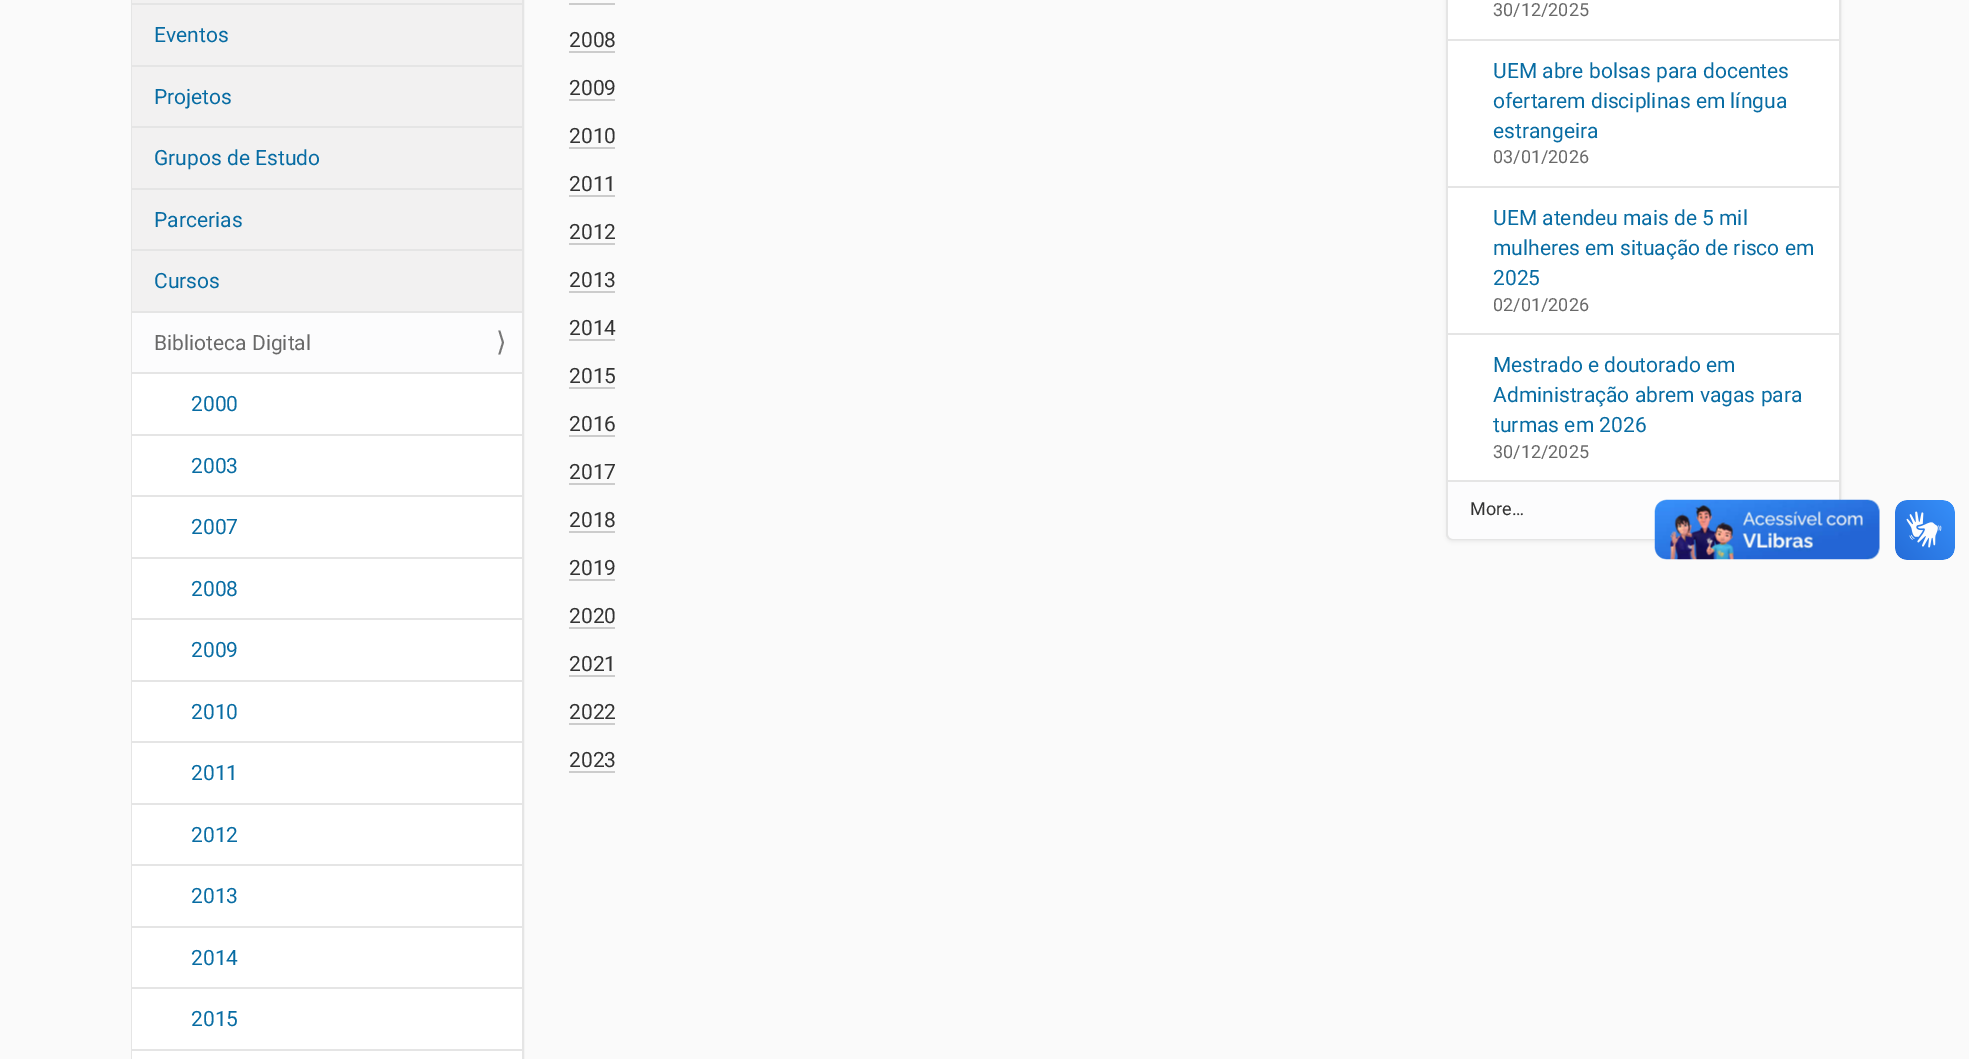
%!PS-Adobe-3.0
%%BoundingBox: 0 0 1969 1059
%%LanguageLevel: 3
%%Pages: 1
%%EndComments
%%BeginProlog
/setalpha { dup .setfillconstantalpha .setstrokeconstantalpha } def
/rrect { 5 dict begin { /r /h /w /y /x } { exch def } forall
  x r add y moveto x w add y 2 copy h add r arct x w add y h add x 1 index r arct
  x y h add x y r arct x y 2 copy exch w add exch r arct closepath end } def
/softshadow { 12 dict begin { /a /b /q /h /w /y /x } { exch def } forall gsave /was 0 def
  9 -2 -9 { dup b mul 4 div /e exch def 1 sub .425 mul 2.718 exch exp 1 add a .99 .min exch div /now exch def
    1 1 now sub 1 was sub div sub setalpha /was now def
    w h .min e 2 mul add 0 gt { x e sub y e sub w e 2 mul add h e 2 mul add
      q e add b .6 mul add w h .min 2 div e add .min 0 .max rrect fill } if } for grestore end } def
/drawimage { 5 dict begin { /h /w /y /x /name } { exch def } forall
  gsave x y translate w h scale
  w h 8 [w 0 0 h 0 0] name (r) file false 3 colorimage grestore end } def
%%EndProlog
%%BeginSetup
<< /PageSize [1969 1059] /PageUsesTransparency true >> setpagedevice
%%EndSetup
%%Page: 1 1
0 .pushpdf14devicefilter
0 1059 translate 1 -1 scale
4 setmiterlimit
0.98 setgray
0 0 1969 1059 rectfill
0.898 setgray
2 setlinewidth
132 -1 391 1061 rectstroke
1 setgray
132 374 390 685 rectfill
0.949 0.945 0.945 setrgbcolor
132 0 390 3 rectfill
132 5 390 60 rectfill
0.898 setgray
132 3 390 2 rectfill
0.949 0.945 0.945 setrgbcolor
132 67 390 59 rectfill
0.898 setgray
132 65 390 2 rectfill
0.949 0.945 0.945 setrgbcolor
132 128 390 60 rectfill
0.898 setgray
132 126 390 2 rectfill
0.949 0.945 0.945 setrgbcolor
132 190 390 59 rectfill
0.898 setgray
132 188 390 2 rectfill
0.949 0.945 0.945 setrgbcolor
132 251 390 60 rectfill
0.898 setgray
132 249 390 2 rectfill
0.988 0.988 0.992 setrgbcolor
132 313 390 59 rectfill
0.898 setgray
132 311 390 2 rectfill
132 372 390 2 rectfill
132 434 390 2 rectfill
132 495 390 2 rectfill
132 557 390 2 rectfill
132 618 390 2 rectfill
132 680 390 2 rectfill
132 741 390 2 rectfill
132 803 390 2 rectfill
132 864 390 2 rectfill
132 926 390 2 rectfill
132 987 390 2 rectfill
132 1049 390 2 rectfill
0.8 setgray
569 3 46 2 rectfill
569 51 46 2 rectfill
569 99 46 2 rectfill
569 147 46 2 rectfill
569 195 46 2 rectfill
569 243 46 2 rectfill
569 291 46 2 rectfill
569 339 46 2 rectfill
569 387 46 2 rectfill
569 435 46 2 rectfill
569 483 46 2 rectfill
569 531 46 2 rectfill
569 579 46 2 rectfill
569 627 46 2 rectfill
569 675 46 2 rectfill
569 723 46 2 rectfill
569 771 46 2 rectfill
0 setgray
1446 -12 395 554 6 2 0.05 softshadow
0.898 setgray
1447 -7 393 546 5 rrect stroke
1 setgray
1448 0 391 480 rectfill
0.898 setgray
1448 39 391 2 rectfill
1448 186 391 2 rectfill
1448 333 391 2 rectfill
0.988 0.988 0.992 setrgbcolor
newpath 1448 480 moveto 1839 480 lineto 1839 533 lineto 1839 536.5 1836.5 539 1833 539 curveto 1454 539 lineto 1450.5 539 1448 536.5 1448 533 curveto closepath fill
0.898 setgray
1448 480 391 2 rectfill
(images/1.raw) 1654 499 226 61 drawimage
(images/2.raw) 1895 500 60 60 drawimage
/Roboto-Regular [21 0 0 -21 0 0] selectfont
0.031 0.424 0.639 setrgbcolor
154 42 moveto (Eventos) show
154 104 moveto (Projetos) show
154 165 moveto (Grupos de Estudo) show
154 227 moveto (Parcerias) show
154 288 moveto (Cursos) show
0.412 setgray
154 350 moveto (Biblioteca Digital) show
/DejaVuSans-Regular [27 0 0 -27 0 0] selectfont
0.467 setgray
496 351 moveto (⟩) show
/Roboto-Regular [21 0 0 -21 0 0] selectfont
0.031 0.424 0.639 setrgbcolor
191 411 moveto (2000) show
191 473 moveto (2003) show
191 534 moveto (2007) show
191 596 moveto (2008) show
191 657 moveto (2009) show
191 719 moveto (2010) show
191 780 moveto (2011) show
191 842 moveto (2012) show
191 903 moveto (2013) show
191 965 moveto (2014) show
191 1026 moveto (2015) show
0.2 setgray
569 47 moveto (2008) show
569 95 moveto (2009) show
569 143 moveto (2010) show
569 191 moveto (2011) show
569 239 moveto (2012) show
569 287 moveto (2013) show
569 335 moveto (2014) show
569 383 moveto (2015) show
569 431 moveto (2016) show
569 479 moveto (2017) show
569 527 moveto (2018) show
569 575 moveto (2019) show
569 623 moveto (2020) show
569 671 moveto (2021) show
569 719 moveto (2022) show
569 767 moveto (2023) show
/Roboto-Regular [18 0 0 -18 0 0] selectfont
0.412 setgray
1493 16 moveto (30/12/2025) show
/Roboto-Regular [21 0 0 -21 0 0] selectfont
0.031 0.424 0.639 setrgbcolor
1493 78 moveto (UEM abre bolsas para docentes) show
1493 108 moveto (ofertarem disciplinas em língua) show
1493 138 moveto (estrangeira) show
/Roboto-Regular [18 0 0 -18 0 0] selectfont
0.412 setgray
1493 163 moveto (03/01/2026) show
/Roboto-Regular [21 0 0 -21 0 0] selectfont
0.031 0.424 0.639 setrgbcolor
1493 225 moveto (UEM atendeu mais de 5 mil) show
1493 255 moveto (mulheres em situação de risco em) show
1493 285 moveto (2025) show
/Roboto-Regular [18 0 0 -18 0 0] selectfont
0.412 setgray
1493 311 moveto (02/01/2026) show
/Roboto-Regular [21 0 0 -21 0 0] selectfont
0.031 0.424 0.639 setrgbcolor
1493 372 moveto (Mestrado e doutorado em) show
1493 402 moveto (Administração abrem vagas para) show
1493 432 moveto (turmas em 2026) show
/Roboto-Regular [18 0 0 -18 0 0] selectfont
0.412 setgray
1493 458 moveto (30/12/2025) show
0.2 setgray
1470 515 moveto (More…) show
.poppdf14devicefilter showpage
%%EOF
